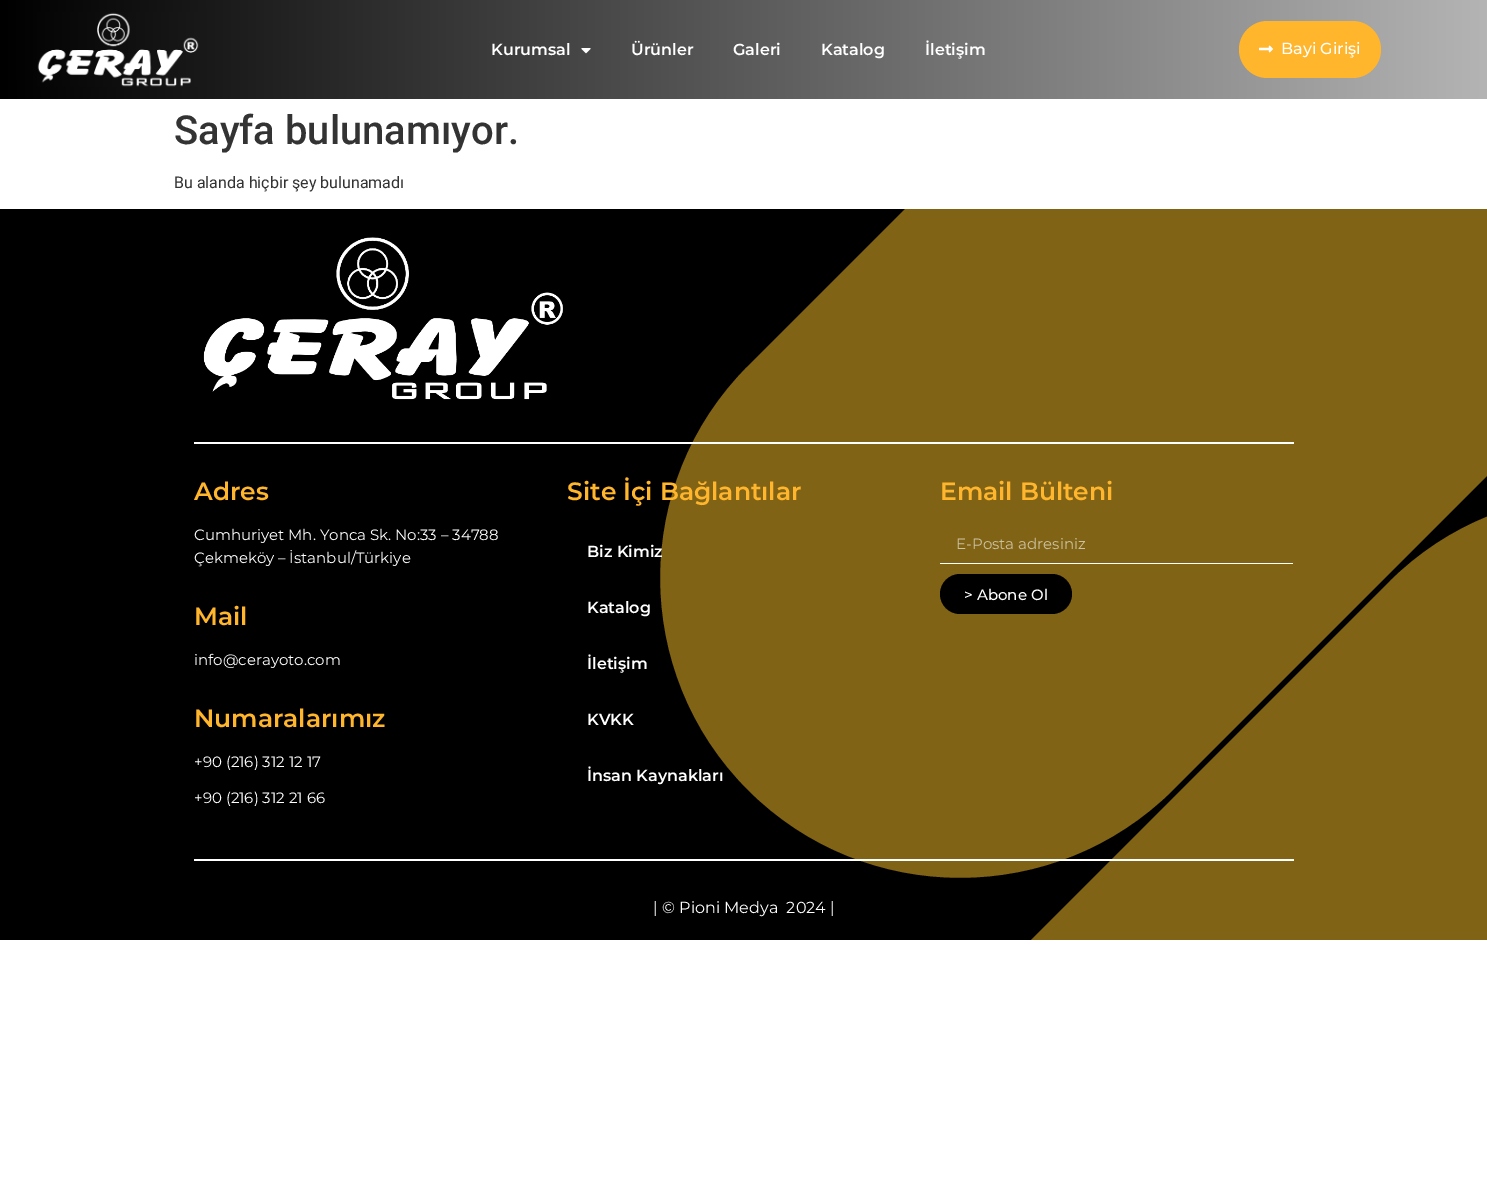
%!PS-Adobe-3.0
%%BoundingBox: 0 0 1487 1198
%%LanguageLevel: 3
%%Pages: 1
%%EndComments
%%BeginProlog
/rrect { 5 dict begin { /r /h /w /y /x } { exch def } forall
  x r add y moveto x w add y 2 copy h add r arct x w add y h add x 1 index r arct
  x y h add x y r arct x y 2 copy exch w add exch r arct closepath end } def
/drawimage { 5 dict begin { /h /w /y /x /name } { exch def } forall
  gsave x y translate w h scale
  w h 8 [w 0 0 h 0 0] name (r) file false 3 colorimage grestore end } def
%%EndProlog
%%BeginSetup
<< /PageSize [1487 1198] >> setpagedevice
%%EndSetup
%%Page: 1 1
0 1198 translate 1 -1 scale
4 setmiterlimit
1 setgray
0 0 1487 1198 rectfill
gsave newpath 0 0 moveto 1487 0 lineto 1487 99 lineto 0 99 lineto closepath clip newpath
<< /ShadingType 2 /ColorSpace /DeviceRGB /Coords [1487 49 0 50] /Extend [true true] /Function << /FunctionType 2 /Domain [0 1] /C0 [0.706 0.706 0.706] /C1 [0 0 0] /N 1 >> >> shfill grestore
(images/1.raw) 37 12 162 75 drawimage
(images/2.raw) 581 48 10 6 drawimage
1 0.71 0.173 setrgbcolor
1239 21 142 57 28.5 rrect fill
(images/3.raw) 1259 45 14 8 drawimage
0 setgray
0 209 1487 731 rectfill
gsave
0 209 1487 731 rectclip
0.502 0.388 0.082 setrgbcolor
newpath 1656 1163 moveto 808 1163 lineto 1389 582 lineto 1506 465 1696 465 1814 582 curveto 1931 699 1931 889 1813 1006 curveto closepath 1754 209 moveto 1173 790 lineto 1055 907 865 907 748 790 curveto 631 673 631 483 748 366 curveto 905 209 lineto closepath eofill
grestore
(images/4.raw) 203 237 360 163 drawimage
1 setgray
194 442 1100 2 rectfill
940 563 353 1 rectfill
0 setgray
940 574 132 40 20 rrect fill
1 setgray
194 859 1100 2 rectfill
/Montserrat-SemiBold [16 0 0 -16 0 0] selectfont
491 55 moveto (Kurumsal) show
631 55 moveto (Ürünler) show
733 55 moveto (Galeri) show
821 55 moveto (Katalog) show
925 55 moveto (İletişim) show
/Montserrat-Medium [16 0 0 -16 0 0] selectfont
1281 54 moveto (Bayi Girişi) show
/Roboto-Medium [40 0 0 -40 0 0] selectfont
0.2 setgray
174 144 moveto (Sayfa bulunamıyor.) show
/Roboto-Regular [16 0 0 -16 0 0] selectfont
174 188 moveto (Bu alanda hiçbir şey bulunamadı) show
/Montserrat-SemiBold [25 0 0 -25 0 0] selectfont
1 0.71 0.173 setrgbcolor
194 500 moveto (Adres) show
/Montserrat-Regular [15 0 0 -15 0 0] selectfont
1 setgray
194 540 moveto (Cumhuriyet Mh. Yonca Sk. No:33 – 34788) show
194 563 moveto (Çekmeköy – İstanbul/Türkiye) show
/Montserrat-SemiBold [25 0 0 -25 0 0] selectfont
1 0.71 0.173 setrgbcolor
194 625 moveto (Mail) show
/Montserrat-Regular [15 0 0 -15 0 0] selectfont
1 setgray
194 665 moveto (info@cerayoto.com) show
/Montserrat-SemiBold [25 0 0 -25 0 0] selectfont
1 0.71 0.173 setrgbcolor
194 727 moveto (Numaralarımız) show
/Montserrat-Regular [15 0 0 -15 0 0] selectfont
1 setgray
194 767 moveto (+90 \(216\) 312 12 17) show
194 803 moveto (+90 \(216\) 312 21 66) show
/Montserrat-SemiBold [25 0 0 -25 0 0] selectfont
1 0.71 0.173 setrgbcolor
567 500 moveto (Site İçi Bağlantılar) show
/Montserrat-SemiBold [16 0 0 -16 0 0] selectfont
1 setgray
587 557 moveto (Biz Kimiz) show
587 613 moveto (Katalog) show
587 669 moveto (İletişim) show
587 725 moveto (KVKK) show
587 781 moveto (İnsan Kaynakları) show
/Montserrat-SemiBold [25 0 0 -25 0 0] selectfont
1 0.71 0.173 setrgbcolor
940 500 moveto (Email Bülteni) show
/Montserrat-Regular [15 0 0 -15 0 0] selectfont
0.8 0.757 0.631 setrgbcolor
956 549 moveto (E-Posta adresiniz) show
/Montserrat-Medium [15 0 0 -15 0 0] selectfont
1 setgray
964 600 moveto (> Abone Ol) show
/Montserrat-Regular [16 0 0 -16 0 0] selectfont
653 913 moveto (| © Pioni Medya  2024 |) show
showpage
%%EOF
